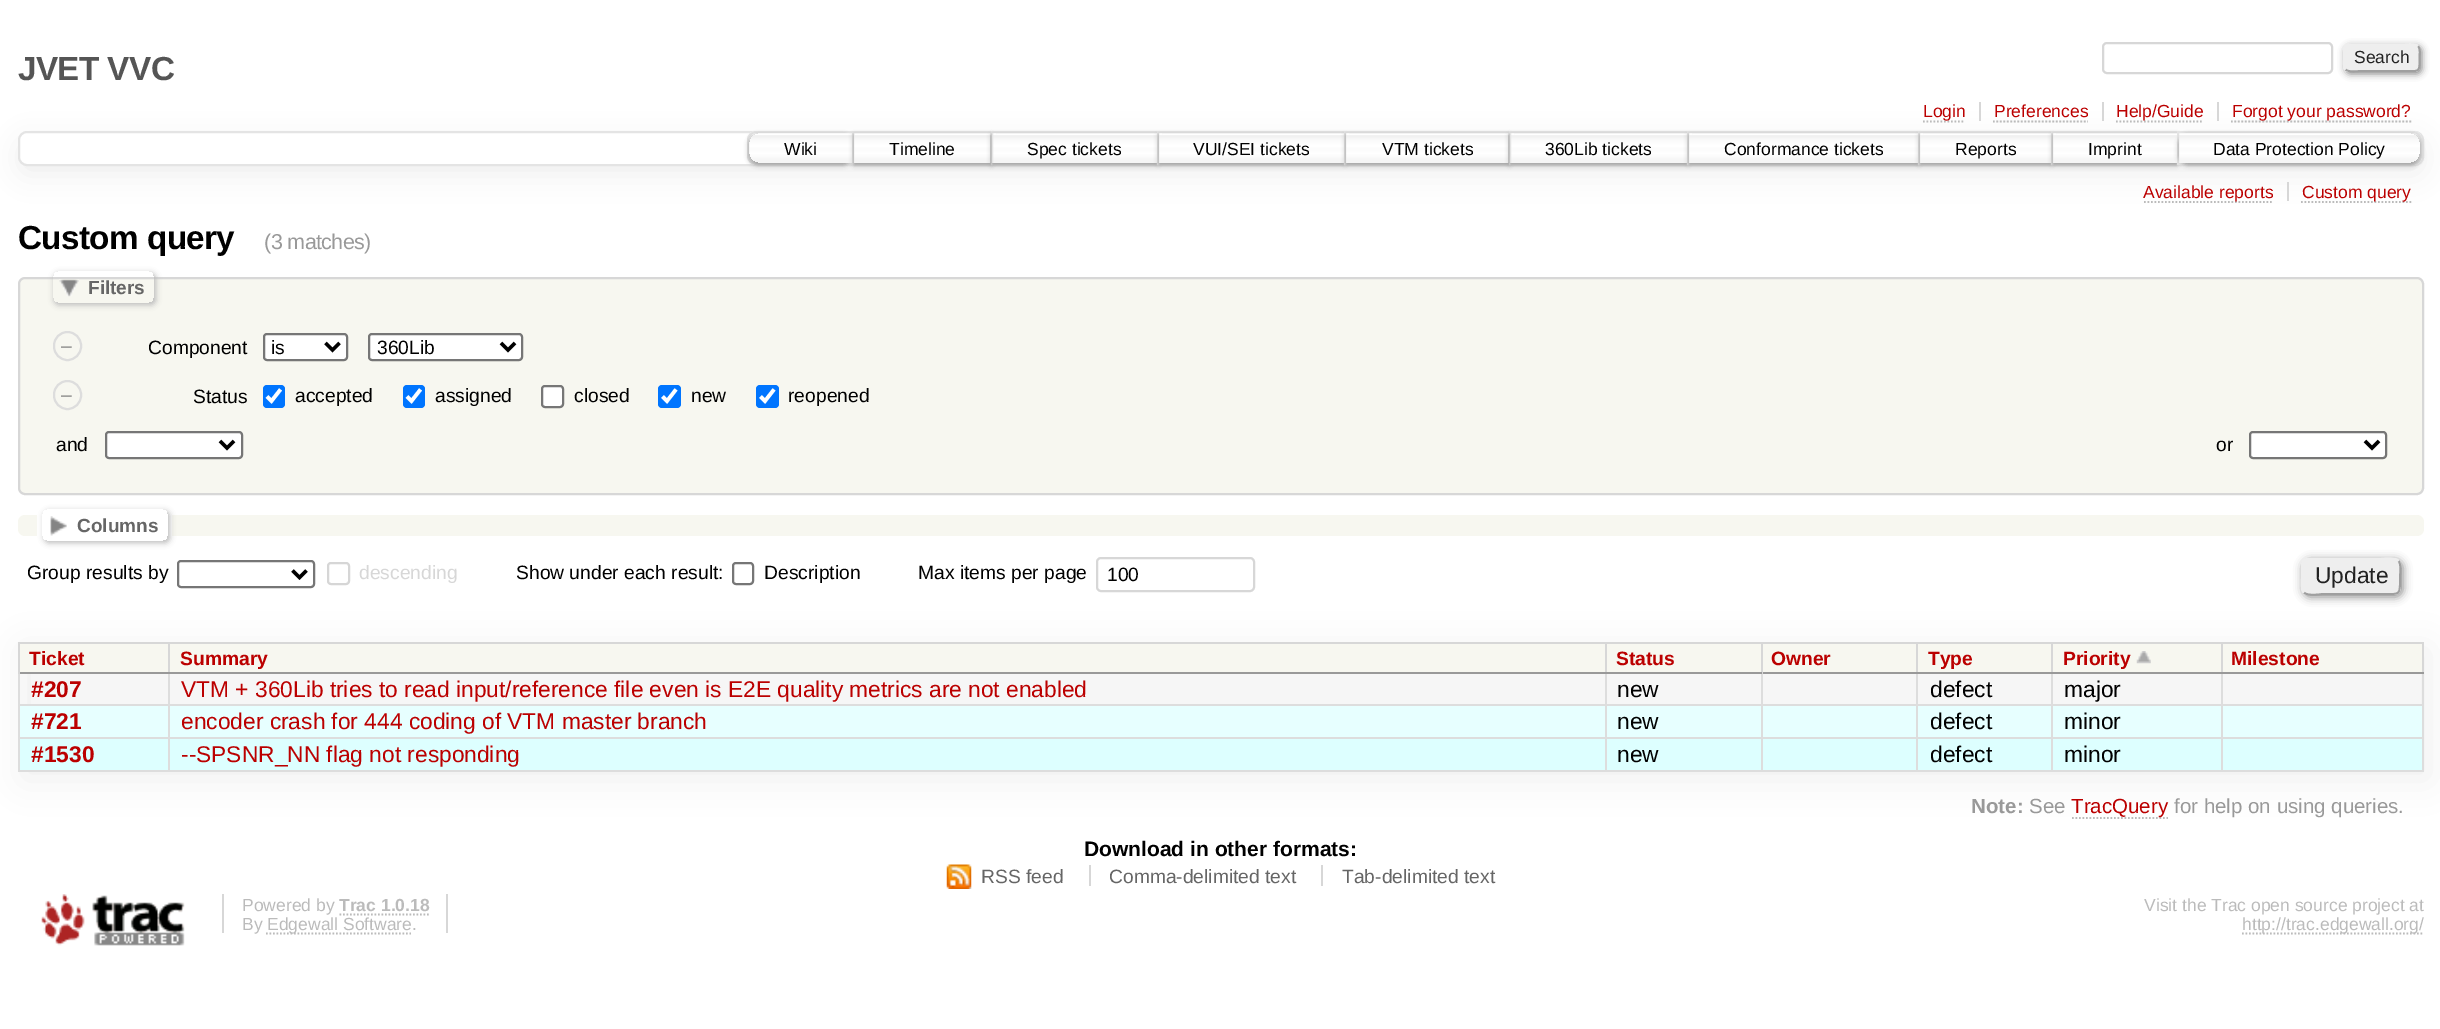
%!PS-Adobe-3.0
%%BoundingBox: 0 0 2440 1029
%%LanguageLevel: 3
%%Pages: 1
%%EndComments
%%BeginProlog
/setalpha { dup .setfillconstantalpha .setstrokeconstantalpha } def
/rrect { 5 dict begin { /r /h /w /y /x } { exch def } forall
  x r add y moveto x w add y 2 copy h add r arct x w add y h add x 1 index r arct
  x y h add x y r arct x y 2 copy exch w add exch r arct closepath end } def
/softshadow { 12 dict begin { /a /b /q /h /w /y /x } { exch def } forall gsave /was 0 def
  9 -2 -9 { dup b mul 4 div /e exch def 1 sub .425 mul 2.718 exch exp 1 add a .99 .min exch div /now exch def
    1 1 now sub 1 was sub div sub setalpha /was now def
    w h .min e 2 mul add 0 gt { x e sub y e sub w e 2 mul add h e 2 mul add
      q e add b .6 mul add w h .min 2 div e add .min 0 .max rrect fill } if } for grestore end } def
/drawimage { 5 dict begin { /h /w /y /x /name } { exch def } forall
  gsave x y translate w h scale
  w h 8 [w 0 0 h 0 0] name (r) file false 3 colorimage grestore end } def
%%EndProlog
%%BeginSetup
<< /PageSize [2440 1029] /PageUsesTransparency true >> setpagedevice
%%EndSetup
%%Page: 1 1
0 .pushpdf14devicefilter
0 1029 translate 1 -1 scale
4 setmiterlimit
1 setgray
0 0 2440 1029 rectfill
0.843 setgray
2 setlinewidth
2103 43 229 30 4 rrect stroke
0.533 setgray
2345 46 77 28 5 3.5 1 softshadow
0.933 setgray
2343 44 77 28 5 rrect fill
0.624 setgray
1.8 setlinewidth
newpath 2418 46 moveto 2420.5 48.5 2419.5 54.5 2419.5 58 curveto 2419.5 73 2420 71 2404 71 curveto 2359.5 71 lineto 2359 71 2348.5 72.5 2345.5 69.5 curveto stroke
0.933 setgray
newpath 2345.5 69.5 moveto 2343 67 2344 61 2344 58 curveto 2344 42.5 2343.5 44.5 2359.5 44.5 curveto 2404 44.5 lineto 2404.5 44.5 2415 43 2418 46 curveto stroke
gsave
newpath 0 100 moveto 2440 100 lineto 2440 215 lineto 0 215 lineto closepath 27 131 moveto 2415 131 lineto 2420 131 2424 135 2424 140 curveto 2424 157 lineto 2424 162 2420 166 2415 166 curveto 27 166 lineto 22 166 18 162 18 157 curveto 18 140 lineto 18 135 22 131 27 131 curveto closepath eoclip newpath
18 140 2406 35 9 13 1 softshadow
grestore
0.843 setgray
1979 102 2 19 rectfill
0.733 setgray
[1.75 1.75] 0 setdash
newpath 1923 121.5 moveto 1965 121.5 lineto stroke
0.843 setgray
2102 102 2 19 rectfill
0.733 setgray
newpath 1993 121.5 moveto 2088 121.5 lineto stroke
0.843 setgray
2217 102 2 19 rectfill
0.733 setgray
newpath 2116 121.5 moveto 2203 121.5 lineto stroke
newpath 2231 121.5 moveto 2411.5 121.5 lineto stroke
0.894 setgray
2 setlinewidth
[] 0 setdash
19 132 2404 33 8 rrect stroke
1 setgray
newpath 756 131 moveto 854 131 lineto 854 165 lineto 756 165 lineto 751 165 747 161 747 156 curveto 747 140 lineto 747 135 751 131 756 131 curveto closepath fill
(images/1.raw) 749 135 103 28 drawimage
0.894 setgray
newpath 756 132 moveto 853 132 lineto 853 164 lineto 756 164 lineto 751.5 164 748 160.5 748 156 curveto 748 140 lineto 748 135.5 751.5 132 756 132 curveto closepath stroke
gsave
newpath 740 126 moveto 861 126 lineto 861 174 lineto 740 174 lineto closepath 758 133 moveto 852 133 lineto 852 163 lineto 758 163 lineto 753 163 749 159 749 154 curveto 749 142 lineto 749 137 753 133 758 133 curveto closepath eoclip newpath
0.6 setgray
749 135 103 30 9 2.5 1 softshadow
grestore
1 setgray
854 137 3 26 rectfill
(images/2.raw) 854 135 136 28 drawimage
0.894 setgray
853 132 138 32 rectstroke
gsave
newpath 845 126 moveto 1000 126 lineto 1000 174 lineto 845 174 lineto closepath 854 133 moveto 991 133 lineto 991 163 lineto 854 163 lineto closepath eoclip newpath
0.6 setgray
854 135 137 30 0 2.5 1 softshadow
grestore
1 setgray
993 133 3 30 rectfill
(images/3.raw) 990 135 167 28 drawimage
0.894 setgray
992 132 166 32 rectstroke
gsave
newpath 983 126 moveto 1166 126 lineto 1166 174 lineto 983 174 lineto closepath 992 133 moveto 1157 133 lineto 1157 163 lineto 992 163 lineto closepath eoclip newpath
0.6 setgray
992 135 165 30 0 2.5 1 softshadow
grestore
1 setgray
1159 133 3 30 rectfill
(images/4.raw) 1159 135 185 28 drawimage
0.894 setgray
1158 132 187 32 rectstroke
gsave
newpath 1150 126 moveto 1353 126 lineto 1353 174 lineto 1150 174 lineto closepath 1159 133 moveto 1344 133 lineto 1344 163 lineto 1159 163 lineto closepath eoclip newpath
0.6 setgray
1159 135 185 30 0 2.5 1 softshadow
grestore
1 setgray
1346 133 3 30 rectfill
(images/5.raw) 1346 135 162 28 drawimage
0.894 setgray
1345 132 164 32 rectstroke
gsave
newpath 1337 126 moveto 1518 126 lineto 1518 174 lineto 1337 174 lineto closepath 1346 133 moveto 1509 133 lineto 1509 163 lineto 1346 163 lineto closepath eoclip newpath
0.6 setgray
1346 135 163 30 0 2.5 1 softshadow
grestore
1 setgray
1511 133 3 30 rectfill
(images/6.raw) 1508 135 179 28 drawimage
0.894 setgray
1510 132 178 32 rectstroke
gsave
newpath 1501 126 moveto 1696 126 lineto 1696 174 lineto 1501 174 lineto closepath 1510 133 moveto 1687 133 lineto 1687 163 lineto 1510 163 lineto closepath eoclip newpath
0.6 setgray
1510 135 177 30 0 2.5 1 softshadow
grestore
1 setgray
1689 133 3 30 rectfill
(images/7.raw) 1689 135 229 28 drawimage
0.894 setgray
1688 132 231 32 rectstroke
gsave
newpath 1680 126 moveto 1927 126 lineto 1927 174 lineto 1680 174 lineto closepath 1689 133 moveto 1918 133 lineto 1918 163 lineto 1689 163 lineto closepath eoclip newpath
0.6 setgray
1689 135 229 30 0 2.5 1 softshadow
grestore
1 setgray
1920 133 3 30 rectfill
(images/8.raw) 1920 135 131 28 drawimage
0.894 setgray
1919 132 133 32 rectstroke
gsave
newpath 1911 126 moveto 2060 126 lineto 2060 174 lineto 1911 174 lineto closepath 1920 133 moveto 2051 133 lineto 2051 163 lineto 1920 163 lineto closepath eoclip newpath
0.6 setgray
1920 135 131 30 0 2.5 1 softshadow
grestore
1 setgray
2053 133 3 30 rectfill
(images/9.raw) 2053 135 124 28 drawimage
0.894 setgray
2052 132 126 32 rectstroke
gsave
newpath 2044 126 moveto 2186 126 lineto 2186 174 lineto 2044 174 lineto closepath 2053 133 moveto 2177 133 lineto 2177 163 lineto 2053 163 lineto closepath eoclip newpath
0.6 setgray
2053 135 124 30 0 2.5 1 softshadow
grestore
1 setgray
newpath 2177 131 moveto 2413 131 lineto 2418 131 2422 135 2422 140 curveto 2422 156 lineto 2422 161 2418 165 2413 165 curveto 2177 165 lineto closepath fill
(images/10.raw) 2179 135 243 28 drawimage
0.894 setgray
newpath 2178 132 moveto 2413 132 lineto 2417.5 132 2421 135.5 2421 140 curveto 2421 156 lineto 2421 160.5 2417.5 164 2413 164 curveto 2178 164 lineto closepath stroke
gsave
newpath 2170 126 moveto 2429 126 lineto 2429 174 lineto 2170 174 lineto closepath 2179 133 moveto 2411 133 lineto 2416 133 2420 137 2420 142 curveto 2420 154 lineto 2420 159 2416 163 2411 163 curveto 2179 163 lineto closepath eoclip newpath
0.6 setgray
2179 135 241 30 9 2.5 1 softshadow
grestore
0.843 setgray
2287 182 2 19 rectfill
0.733 setgray
1.8 setlinewidth
[1.75 1.75] 0 setdash
newpath 2144 202 moveto 2273 202 lineto stroke
newpath 2301 202 moveto 2411.5 202 lineto stroke
0.969 0.969 0.941 setrgbcolor
19 278 2404 216 6 rrect gsave fill grestore
0.843 setgray
2 setlinewidth
[] 0 setdash
stroke
gsave
newpath 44 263 moveto 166 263 lineto 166 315 lineto 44 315 lineto closepath 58 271 moveto 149 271 lineto 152 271 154 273 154 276 curveto 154 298 lineto 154 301 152 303 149 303 curveto 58 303 lineto 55 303 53 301 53 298 curveto 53 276 lineto 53 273 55 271 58 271 curveto closepath eoclip newpath
0.733 setgray
54 273 102 32 5 3 1 softshadow
grestore
(images/11.raw) 59 279 20 18 drawimage
0.867 setgray
54 332 27 28 13.5 rrect stroke
1 setgray
264 334 83 26 3 rrect gsave fill grestore
0.463 setgray
stroke
0 setgray
3.5 setlinewidth
newpath 325.5 343 moveto 332.5 350 lineto 339.5 343 lineto stroke
1 setgray
369 334 153 26 3 rrect gsave fill grestore
0.463 setgray
2 setlinewidth
stroke
0 setgray
3.5 setlinewidth
newpath 501 343 moveto 508 350 lineto 515 343 lineto stroke
0.867 setgray
2 setlinewidth
54 381 27 28 13.5 rrect stroke
0 0.459 1 setrgbcolor
263 385 22 23 4 rrect fill
1 setgray
3.6 setlinewidth
newpath 267 396.5 moveto 271.5 401 lineto 280.5 389.5 lineto stroke
0 0.459 1 setrgbcolor
403 385 22 23 4 rrect fill
1 setgray
newpath 407 396.5 moveto 411.5 401 lineto 420.5 389.5 lineto stroke
542 386 21 21 3 rrect gsave fill grestore
0.463 setgray
2 setlinewidth
stroke
0 0.459 1 setrgbcolor
658 385 23 23 4 rrect fill
1 setgray
3.6 setlinewidth
newpath 662.5 396.5 moveto 667 401 lineto 676 389.5 lineto stroke
0 0.459 1 setrgbcolor
756 385 23 23 4 rrect fill
1 setgray
newpath 760.5 396.5 moveto 765 401 lineto 774 389.5 lineto stroke
106 432 136 26 3 rrect gsave fill grestore
0.463 setgray
2 setlinewidth
stroke
0 setgray
3.5 setlinewidth
newpath 220 441 moveto 227 448 lineto 234 441 lineto stroke
1 setgray
2250 432 136 26 3 rrect gsave fill grestore
0.463 setgray
2 setlinewidth
stroke
0 setgray
3.5 setlinewidth
newpath 2365 441 moveto 2372 448 lineto 2379 441 lineto stroke
0.969 0.969 0.941 setrgbcolor
18 515 2406 21 7 rrect fill
1 setgray
37 515 135 21 rectfill
gsave
newpath 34 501 moveto 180 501 lineto 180 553 lineto 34 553 lineto closepath 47 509 moveto 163 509 lineto 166 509 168 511 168 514 curveto 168 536 lineto 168 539 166 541 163 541 curveto 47 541 lineto 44 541 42 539 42 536 curveto 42 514 lineto 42 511 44 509 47 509 curveto closepath eoclip newpath
0.733 setgray
44 511 126 32 5 3 1 softshadow
grestore
(images/12.raw) 50 516 17 20 drawimage
0.463 setgray
2 setlinewidth
178 561 136 26 3 rrect stroke
0 setgray
3.5 setlinewidth
newpath 292.5 570.5 moveto 299.5 577.5 lineto 306.5 570.5 lineto stroke
0.839 setgray
2 setlinewidth
328 563 21 21 3 rrect stroke
0.463 setgray
733 563 20 21 3 rrect stroke
0.843 setgray
1097 558 157 33 4 rrect stroke
0.533 setgray
2303 560 100 37 7 4.5 1 softshadow
0.933 setgray
2301 558 100 37 7 rrect fill
0.624 setgray
1.8 setlinewidth
newpath 2398.5 561 moveto 2401.5 564 2400 573 2400 576.5 curveto 2400 596.5 2401 594 2380 594 curveto 2322.5 594 lineto 2321 594 2308 596.5 2304 592.5 curveto stroke
0.933 setgray
newpath 2304 592.5 moveto 2300.5 589 2302 580.5 2302 576.5 curveto 2302 556.5 2301 559 2322.5 559 curveto 2380 559 lineto 2381.5 559 2394.5 557 2398.5 561 curveto stroke
23 649 2406 130 0 17 1 softshadow
0.969 0.969 0.941 setrgbcolor
20 644 2402 28 rectfill
0.843 setgray
2221 642 203 2 rectfill
0.867 setgray
2221 704 203 2 rectfill
2221 737 203 2 rectfill
2422 737 2 35 rectfill
2422 672 2 67 rectfill
0.843 setgray
2422 642 2 32 rectfill
0.965 setgray
31 674 2390 30 rectfill
0.906 1 1 setrgbcolor
20 706 2402 31 rectfill
0.867 1 1 setrgbcolor
20 739 2402 31 rectfill
0.867 setgray
2221 770 203 2 rectfill
2221 737 2 35 rectfill
2051 737 172 2 rectfill
2221 704 2 35 rectfill
2051 704 172 2 rectfill
2221 672 2 33 rectfill
0.6 setgray
2221 672 203 2 rectfill
0.843 setgray
2221 642 2 32 rectfill
2051 642 172 2 rectfill
0.867 setgray
2051 770 172 2 rectfill
2051 737 2 35 rectfill
1916 737 137 2 rectfill
2051 704 2 35 rectfill
1916 704 137 2 rectfill
2051 672 2 33 rectfill
0.6 setgray
2051 672 172 2 rectfill
0.843 setgray
2051 642 2 32 rectfill
1916 642 137 2 rectfill
0.867 setgray
1916 770 137 2 rectfill
1916 737 2 35 rectfill
1761 737 157 2 rectfill
1916 704 2 35 rectfill
1761 704 157 2 rectfill
1916 672 2 33 rectfill
0.6 setgray
1916 672 137 2 rectfill
0.843 setgray
1916 642 2 32 rectfill
1761 642 157 2 rectfill
0.867 setgray
1761 770 157 2 rectfill
1761 737 2 35 rectfill
1605 737 157 2 rectfill
1761 704 2 35 rectfill
1605 704 157 2 rectfill
1761 672 2 33 rectfill
0.6 setgray
1761 672 157 2 rectfill
0.843 setgray
1761 642 2 32 rectfill
1605 642 157 2 rectfill
0.867 setgray
1605 770 157 2 rectfill
1605 737 2 35 rectfill
168 737 1439 2 rectfill
1605 704 2 35 rectfill
168 704 1439 2 rectfill
1605 672 2 33 rectfill
0.6 setgray
1605 672 157 2 rectfill
0.843 setgray
1605 642 2 32 rectfill
168 642 1439 2 rectfill
0.867 setgray
168 770 1439 2 rectfill
168 737 2 35 rectfill
18 737 152 2 rectfill
168 704 2 35 rectfill
18 704 152 2 rectfill
168 672 2 33 rectfill
0.6 setgray
168 672 1439 2 rectfill
0.843 setgray
168 642 2 32 rectfill
18 642 152 2 rectfill
0.867 setgray
18 770 152 2 rectfill
18 737 2 35 rectfill
18 672 2 67 rectfill
0.6 setgray
18 672 152 2 rectfill
0.843 setgray
18 642 2 32 rectfill
(images/13.raw) 2136 651 15 13 drawimage
0.733 setgray
[1.75 1.75] 0 setdash
newpath 2072 818 moveto 2168 818 lineto stroke
(images/14.raw) 946 864 26 25 drawimage
0.843 setgray
1089 865 2 21 rectfill
1321 865 2 21 rectfill
(images/15.raw) 41 894 144 52 drawimage
446 894 2 39 rectfill
222 894 2 39 rectfill
0.733 setgray
newpath 339.5 914.5 moveto 429 914.5 lineto stroke
newpath 266 933.5 moveto 411 933.5 lineto stroke
newpath 2242 933.5 moveto 2424 933.5 lineto stroke
/LiberationSans-Bold [33.25 0 0 -33.25 0 0] selectfont
0.333 setgray
18 80 moveto -0.6 0 (JVET VVC) ashow
/LiberationSans-Regular [17.5 0 0 -17.5 0 0] selectfont
0.133 setgray
2354 63 moveto (Search) show
0.733 0 0 setrgbcolor
1923 117 moveto (Login) show
1994 117 moveto (Preferences) show
2116 117 moveto (Help/Guide) show
2232 117 moveto (Forgot your password?) show
0 setgray
784 155 moveto (Wiki) show
889 155 moveto (Timeline) show
1027 155 moveto (Spec tickets) show
1193 155 moveto (VUI/SEI tickets) show
1382 155 moveto (VTM tickets) show
1545 155 moveto (360Lib tickets) show
1724 155 moveto (Conformance tickets) show
1955 155 moveto (Reports) show
2088 155 moveto (Imprint) show
2213 155 moveto (Data Protection Policy) show
0.733 0 0 setrgbcolor
2143 198 moveto (Available reports) show
2302 198 moveto (Custom query) show
/LiberationSans-Bold [33.25 0 0 -33.25 0 0] selectfont
0 setgray
18 249 moveto -0.6 0 (Custom query) ashow
/LiberationSans-Regular [21.5 0 0 -21.5 0 0] selectfont
0.6 setgray
264 249 moveto -0.6 0 (\(3 matches\)) ashow
/LiberationSans-Bold [19 0 0 -19 0 0] selectfont
0.4 setgray
88 294 moveto (Filters) show
/LiberationSans-Regular [19.25 0 0 -19.25 0 0] selectfont
0.502 setgray
61 352 moveto (–) show
0 setgray
148 354 moveto (Component) show
271 354 moveto (is) show
377 354 moveto (360Lib) show
0.502 setgray
61 401 moveto (–) show
0 setgray
193 403 moveto (Status) show
295 402 moveto (accepted) show
435 402 moveto (assigned) show
574 402 moveto (closed) show
691 402 moveto (new) show
788 402 moveto (reopened) show
56 451 moveto (and) show
2216 451 moveto (or) show
/LiberationSans-Bold [19 0 0 -19 0 0] selectfont
0.4 setgray
77 532 moveto (Columns) show
/LiberationSans-Regular [19.25 0 0 -19.25 0 0] selectfont
0 setgray
27 579 moveto (Group results by) show
0.843 setgray
359 579 moveto (descending) show
0 setgray
516 579 moveto (Show under each result:) show
764 579 moveto (Description) show
918 579 moveto (Max items per page) show
1107 581 moveto (100) show
/LiberationSans-Regular [22.75 0 0 -22.75 0 0] selectfont
0.133 setgray
2315 583 moveto (Update) show
/LiberationSans-Bold [19.25 0 0 -19.25 0 0] selectfont
0.733 0 0 setrgbcolor
29 665 moveto (Ticket) show
180 665 moveto (Summary) show
1616 665 moveto (Status) show
1771 665 moveto (Owner) show
1928 665 moveto (Type) show
2063 665 moveto (Priority) show
2231 665 moveto (Milestone) show
/LiberationSans-Bold [22.75 0 0 -22.75 0 0] selectfont
31 697 moveto (#207) show
/LiberationSans-Regular [22.75 0 0 -22.75 0 0] selectfont
181 697 moveto (VTM + 360Lib tries to read input/reference file even is E2E quality metrics are not enabled) show
0 setgray
1617 697 moveto (new) show
1930 697 moveto (defect) show
2064 697 moveto (major) show
/LiberationSans-Bold [22.75 0 0 -22.75 0 0] selectfont
0.733 0 0 setrgbcolor
31 729 moveto (#721) show
/LiberationSans-Regular [22.75 0 0 -22.75 0 0] selectfont
181 729 moveto (encoder crash for 444 coding of VTM master branch) show
0 setgray
1617 729 moveto (new) show
1930 729 moveto (defect) show
2064 729 moveto (minor) show
/LiberationSans-Bold [22.75 0 0 -22.75 0 0] selectfont
0.733 0 0 setrgbcolor
31 762 moveto (#1530) show
/LiberationSans-Regular [22.75 0 0 -22.75 0 0] selectfont
181 762 moveto (--SPSNR_NN flag not responding) show
0 setgray
1617 762 moveto (new) show
1930 762 moveto (defect) show
2064 762 moveto (minor) show
/LiberationSans-Bold [20.5 0 0 -20.5 0 0] selectfont
0.6 setgray
1971 813 moveto (Note:) show
/LiberationSans-Regular [20.5 0 0 -20.5 0 0] selectfont
2029 813 moveto (See) show
0.733 0 0 setrgbcolor
2071 813 moveto (TracQuery) show
0.6 setgray
2174 813 moveto (for help on using queries.) show
/LiberationSans-Bold [21 0 0 -21 0 0] selectfont
0 setgray
1084 856 moveto (Download in other formats:) show
/LiberationSans-Regular [19.25 0 0 -19.25 0 0] selectfont
0.4 setgray
981 883 moveto (RSS feed) show
1109 883 moveto (Comma-delimited text) show
1342 883 moveto (Tab-delimited text) show
/LiberationSans-Regular [17.5 0 0 -17.5 0 0] selectfont
0.733 setgray
242 911 moveto (Powered by) show
/LiberationSans-Bold [17.5 0 0 -17.5 0 0] selectfont
339 911 moveto (Trac 1.0.18) show
/LiberationSans-Regular [17.5 0 0 -17.5 0 0] selectfont
242 930 moveto (By) show
267 930 moveto (Edgewall Software.) show
2144 911 moveto (Visit the Trac open source project at) show
2242 930 moveto (http://trac.edgewall.org/) show
.poppdf14devicefilter showpage
%%EOF
